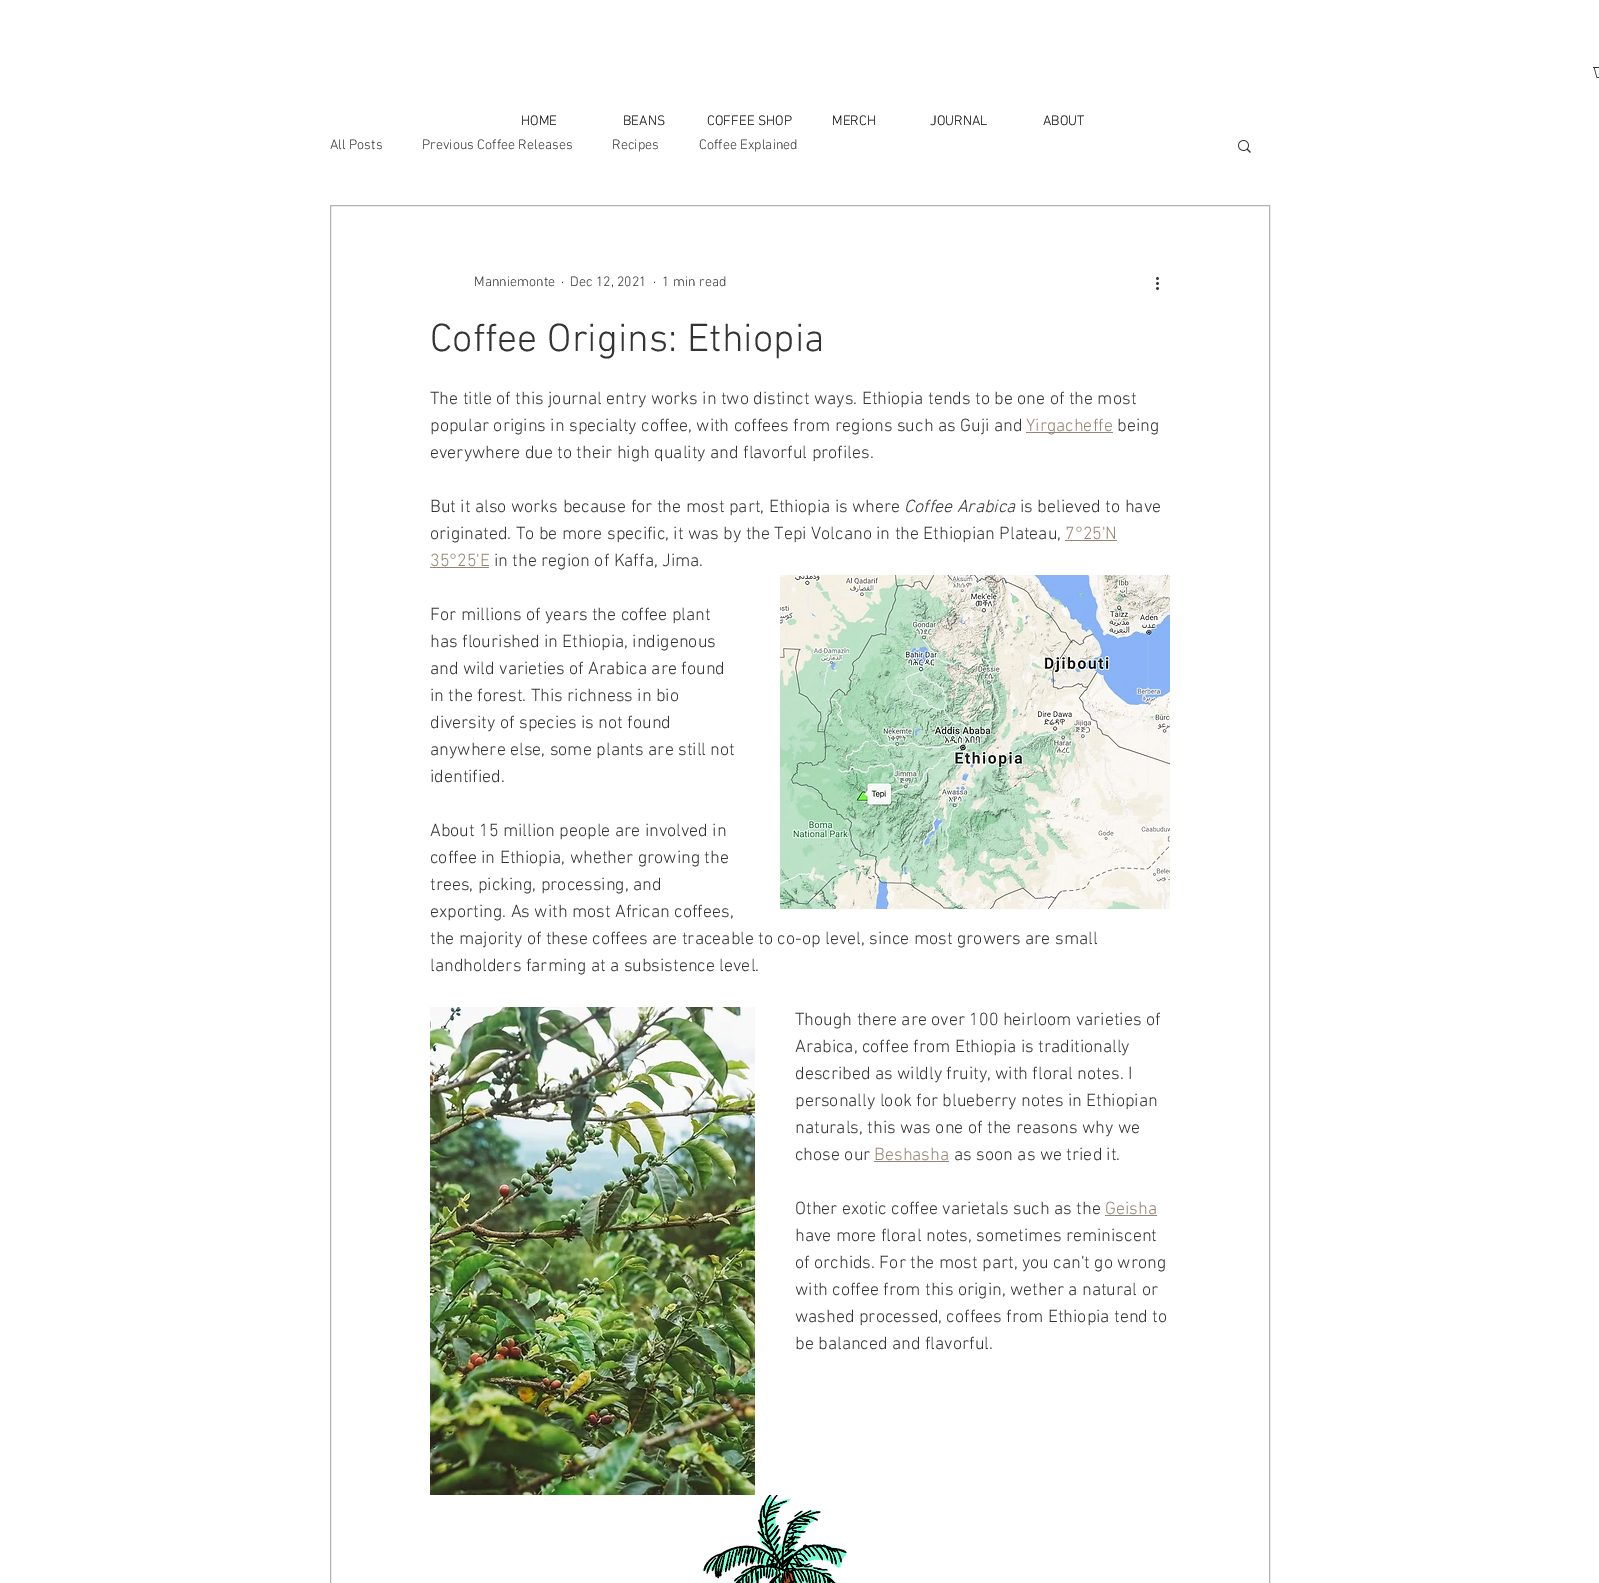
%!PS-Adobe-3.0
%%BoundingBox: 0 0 1599 1583
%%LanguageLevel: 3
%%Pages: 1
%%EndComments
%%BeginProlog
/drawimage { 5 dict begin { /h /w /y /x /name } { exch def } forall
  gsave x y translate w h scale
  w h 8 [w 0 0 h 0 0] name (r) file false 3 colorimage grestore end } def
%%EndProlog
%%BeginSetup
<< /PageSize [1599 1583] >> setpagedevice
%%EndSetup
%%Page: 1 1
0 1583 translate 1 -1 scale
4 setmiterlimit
1 setgray
0 0 1599 1583 rectfill
(images/1.raw) 1593 67 6 11 drawimage
(images/2.raw) 1238 140 13 13 drawimage
0.702 setgray
330.5 205.5 939 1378 rectstroke
(images/3.raw) 1156 277 3 13 drawimage
0.588 0.522 0.459 setrgbcolor
1026 432 87 1 rectfill
1065 540 52 1 rectfill
430 567 59 1 rectfill
(images/4.raw) 780 575 390 334 drawimage
(images/5.raw) 430 1007 325 488 drawimage
874 1161 75 1 rectfill
1105 1215 52 1 rectfill
(images/6.raw) 702 1495 145 88 drawimage
/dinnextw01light-Light [14 0 0 -14 0 0] selectfont
0 setgray
521 125 moveto (HOME) show
623 125 moveto (BEANS) show
707 125 moveto (COFFEE SHOP) show
832 125 moveto (MERCH) show
930 125 moveto (JOURNAL) show
1043 125 moveto (ABOUT) show
0.2 setgray
330 149 moveto (All Posts) show
422 149 moveto (Previous Coffee Releases) show
612 149 moveto (Recipes) show
699 149 moveto (Coffee Explained) show
474 286 moveto (Manniemonte) show
561 286 moveto (·) show
570 286 moveto (Dec 12, 2021) show
653 286 moveto (·) show
662 286 moveto (1 min read) show
/dinnextw01light-Light [40 0 0 -40 0 0] selectfont
430 351 moveto (Coffee Origins: Ethiopia) show
/dinnextw01light-Light [18 0 0 -18 0 0] selectfont
430 404 moveto (The title of this journal entry works in two distinct ways. Ethiopia tends to be one of the most) show
430 431 moveto (popular origins in specialty coffee, with coffees from regions such as Guji and) show
0.588 0.522 0.459 setrgbcolor
1026 431 moveto (Yirgacheffe) show
0.2 setgray
1117 431 moveto (being) show
430 458 moveto (everywhere due to their high quality and flavorful profiles.) show
430 512 moveto (But it also works because for the most part, Ethiopia is where) show
/dinnextw01light-LightItalic [18 0 0 -18 0 0] selectfont
904 512 moveto (Coffee Arabica) show
/dinnextw01light-Light [18 0 0 -18 0 0] selectfont
1020 512 moveto (is believed to have) show
430 539 moveto (originated. To be more specific, it was by the Tepi Volcano in the Ethiopian Plateau,) show
0.588 0.522 0.459 setrgbcolor
1065 539 moveto (7°25'N) show
430 566 moveto (35°25'E) show
0.2 setgray
494 566 moveto (in the region of Kaffa, Jima.) show
430 620 moveto (For millions of years the coffee plant) show
430 647 moveto (has flourished in Ethiopia, indigenous) show
430 674 moveto (and wild varieties of Arabica are found) show
430 701 moveto (in the forest. This richness in bio) show
430 728 moveto (diversity of species is not found) show
430 755 moveto (anywhere else, some plants are still not) show
430 782 moveto (identified.) show
430 836 moveto (About 15 million people are involved in) show
430 863 moveto (coffee in Ethiopia, whether growing the) show
430 890 moveto (trees, picking, processing, and) show
430 917 moveto (exporting. As with most African coffees,) show
430 944 moveto (the majority of these coffees are traceable to co-op level, since most growers are small) show
430 971 moveto (landholders farming at a subsistence level.) show
795 1025 moveto (Though there are over 100 heirloom varieties of) show
795 1052 moveto (Arabica, coffee from Ethiopia is traditionally) show
795 1079 moveto (described as wildly fruity, with floral notes. I) show
795 1106 moveto (personally look for blueberry notes in Ethiopian) show
795 1133 moveto (naturals, this was one of the reasons why we) show
795 1160 moveto (chose our) show
0.588 0.522 0.459 setrgbcolor
874 1160 moveto (Beshasha) show
0.2 setgray
954 1160 moveto (as soon as we tried it.) show
795 1214 moveto (Other exotic coffee varietals such as the) show
0.588 0.522 0.459 setrgbcolor
1105 1214 moveto (Geisha) show
0.2 setgray
795 1241 moveto (have more floral notes, sometimes reminiscent) show
795 1268 moveto (of orchids. For the most part, you can't go wrong) show
795 1295 moveto (with coffee from this origin, wether a natural or) show
795 1322 moveto (washed processed, coffees from Ethiopia tend to) show
795 1349 moveto (be balanced and flavorful.) show
showpage
%%EOF
